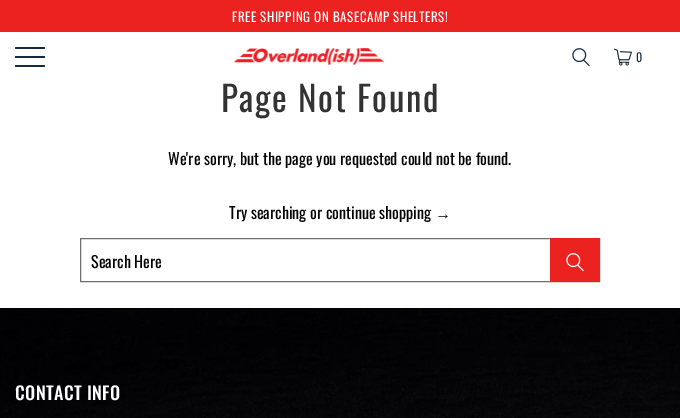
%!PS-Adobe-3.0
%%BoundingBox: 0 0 680 418
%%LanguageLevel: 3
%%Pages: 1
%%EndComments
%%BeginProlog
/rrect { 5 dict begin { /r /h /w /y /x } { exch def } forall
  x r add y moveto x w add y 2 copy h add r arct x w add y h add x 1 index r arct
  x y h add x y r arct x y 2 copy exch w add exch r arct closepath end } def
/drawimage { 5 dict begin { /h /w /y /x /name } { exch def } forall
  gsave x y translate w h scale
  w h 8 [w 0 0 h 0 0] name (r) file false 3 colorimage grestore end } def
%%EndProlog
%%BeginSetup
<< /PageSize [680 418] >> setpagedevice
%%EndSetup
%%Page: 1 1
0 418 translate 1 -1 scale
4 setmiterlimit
1 setgray
0 0 680 418 rectfill
0.922 0.133 0.125 setrgbcolor
0 0 680 32 rectfill
0.078 0.169 0.231 setrgbcolor
15 47 30 2 1 rrect fill
15 56 30 2 1 rrect fill
15 65 30 2 1 rrect fill
(images/1.raw) 233 48 151 17 drawimage
(images/2.raw) 572 48 18 19 drawimage
(images/3.raw) 614 48 18 18 drawimage
0.439 setgray
80.5 238.5 519 43 rectstroke
0.922 0.133 0.125 setrgbcolor
550 238 50 44 rectfill
(images/4.raw) 566 253 18 19 drawimage
(images/5.raw) 0 308 680 110 drawimage
/Oswald-Regular [13 0 0 -13 0 0] selectfont
1 setgray
232 22 moveto 0.55 0 (FREE SHIPPING ON BASECAMP SHELTERS!) ashow
/Oswald-Regular [12 0 0 -12 0 0] selectfont
0.078 0.169 0.231 setrgbcolor
636 62 moveto 1 0 (0) ashow
/Oswald-Regular [35 0 0 -35 0 0] selectfont
0.2 setgray
221 112 moveto 1.6 0 (Page Not Found) ashow
/Oswald-Regular [16 0 0 -16 0 0] selectfont
0 setgray
168 165 moveto (We're sorry, but the page you requested could not be found.) show
229 219 moveto (Try searching or continue shopping) show
/LiberationSerif-Regular [16 0 0 -16 0 0] selectfont
435 219 moveto (→) show
/Oswald-Regular [16 0 0 -16 0 0] selectfont
91 268 moveto (Search Here) show
/Oswald-Medium [18 0 0 -18 0 0] selectfont
1 setgray
15 400 moveto 0.4 0 (CONTACT INFO) ashow
showpage
%%EOF
